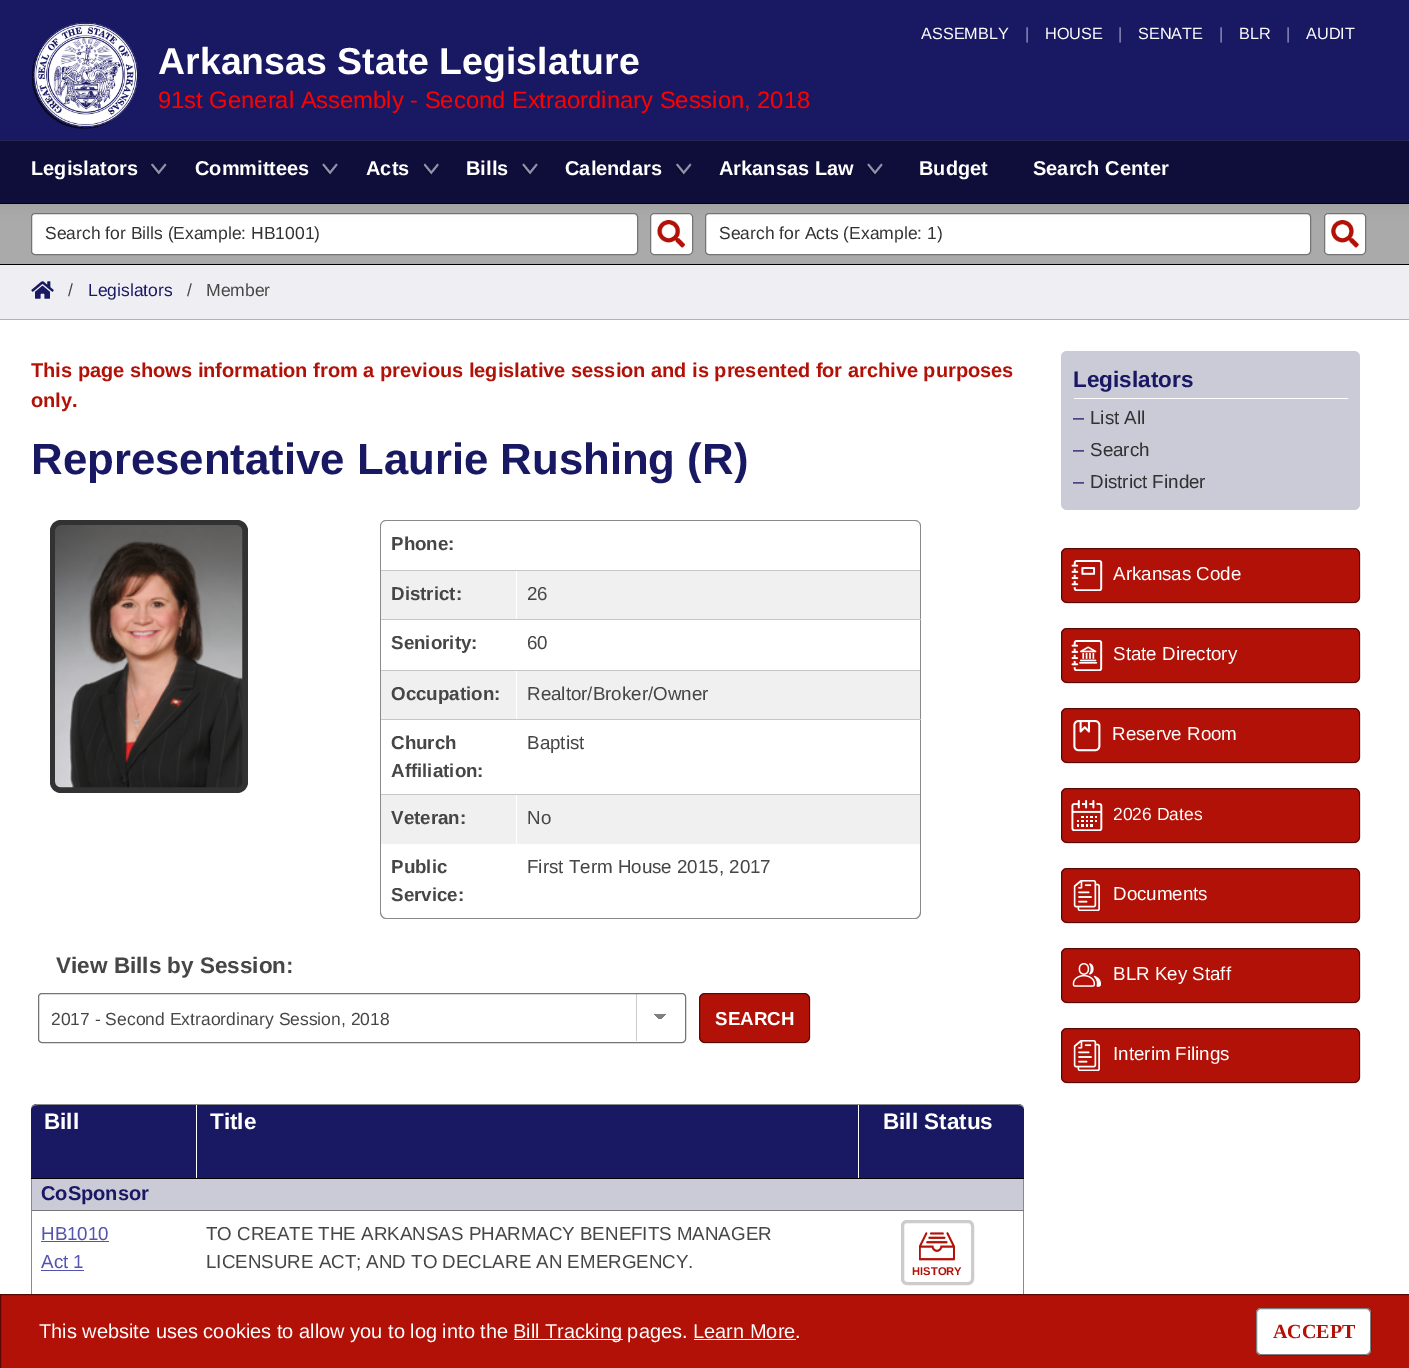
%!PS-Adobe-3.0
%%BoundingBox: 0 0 1409 1368
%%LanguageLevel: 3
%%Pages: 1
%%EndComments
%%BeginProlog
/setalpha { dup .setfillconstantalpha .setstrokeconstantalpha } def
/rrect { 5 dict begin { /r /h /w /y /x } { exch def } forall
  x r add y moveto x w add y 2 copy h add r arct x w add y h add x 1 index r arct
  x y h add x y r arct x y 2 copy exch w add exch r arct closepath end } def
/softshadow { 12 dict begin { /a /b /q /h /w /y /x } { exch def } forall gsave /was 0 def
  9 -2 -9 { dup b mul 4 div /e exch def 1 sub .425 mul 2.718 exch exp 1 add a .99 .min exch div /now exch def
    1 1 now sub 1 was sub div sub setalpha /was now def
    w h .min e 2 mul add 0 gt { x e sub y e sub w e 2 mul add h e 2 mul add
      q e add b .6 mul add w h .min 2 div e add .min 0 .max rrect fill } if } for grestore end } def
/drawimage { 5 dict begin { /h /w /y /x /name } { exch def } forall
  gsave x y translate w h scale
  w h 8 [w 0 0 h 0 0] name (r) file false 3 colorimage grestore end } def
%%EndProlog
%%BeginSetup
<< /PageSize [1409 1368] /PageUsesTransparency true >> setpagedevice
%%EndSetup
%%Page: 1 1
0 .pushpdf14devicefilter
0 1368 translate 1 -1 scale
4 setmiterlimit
1 setgray
0 0 1409 1368 rectfill
0.098 0.094 0.384 setrgbcolor
0 0 1409 140 rectfill
(images/1.raw) 32 22 106 107 drawimage
0.667 setgray
0 204 1409 60 rectfill
0 setgray
0 203 1409 1 rectfill
1 setgray
31.5 213.5 606 41 3.5 rrect gsave fill grestore
0.455 setgray
stroke
1 setgray
650 213 43 42 4 rrect fill
(images/6.raw) 657 220 28 28 drawimage
0.455 setgray
650.5 213.5 42 41 3.5 rrect stroke
1 setgray
705.5 213.5 605 41 3.5 rrect gsave fill grestore
0.455 setgray
stroke
1 setgray
1324 213 42 42 4 rrect fill
(images/7.raw) 1331 220 28 28 drawimage
0.455 setgray
1324.5 213.5 41 41 3.5 rrect stroke
0 setgray
-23 145 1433 63 0 7.5 0.05 softshadow
0.059 0.055 0.231 setrgbcolor
0 141 1409 62 rectfill
0.153 0.153 0.294 setrgbcolor
0 140 1409 1 rectfill
(images/2.raw) 150 163 17 13 drawimage
(images/3.raw) 321 163 17 13 drawimage
(images/4.raw) 423 163 16 13 drawimage
(images/3.raw) 521 163 17 13 drawimage
(images/5.raw) 675 163 17 13 drawimage
(images/3.raw) 866 163 17 13 drawimage
0 setgray
0 264 1409 1 rectfill
0.937 0.937 0.953 setrgbcolor
0 265 1409 54 rectfill
0.698 setgray
0 319 1409 1 rectfill
(images/8.raw) 31 281 23 18 drawimage
0.196 setgray
50 520 198 273 11 rrect fill
(images/9.raw) 55 525 188 263 drawimage
0.541 setgray
newpath 386 520 moveto 915 520 lineto 918 520 921 523 921 526 curveto 921 570 lineto 380 570 lineto 380 526 lineto 380 523 383 520 386 520 curveto closepath 386 521 moveto 915 521 lineto 918 521 920 523 920 526 curveto 920 570 lineto 381 570 lineto 381 526 lineto 381 523 383 521 386 521 curveto closepath eofill
0.941 setgray
381 571 539 48 rectfill
0.776 setgray
380 570 541 1 rectfill
0.541 setgray
920 570 1 100 rectfill
0.776 setgray
380 619 541 1 rectfill
0.541 setgray
380 570 1 100 rectfill
1 setgray
516 571 1 48 rectfill
0.941 setgray
381 671 539 48 rectfill
0.776 setgray
380 670 541 1 rectfill
0.541 setgray
920 670 1 124 rectfill
0.776 setgray
380 719 541 1 rectfill
0.541 setgray
380 670 1 124 rectfill
1 setgray
516 671 1 48 rectfill
0.941 setgray
381 795 539 49 rectfill
0.776 setgray
380 794 541 1 rectfill
0.541 setgray
920 794 1 50 rectfill
380 794 1 50 rectfill
1 setgray
516 795 1 49 rectfill
0.541 setgray
newpath 380 844 moveto 921 844 lineto 921 912 lineto 921 916 918 919 915 919 curveto 386 919 lineto 383 919 380 916 380 912 curveto closepath 381 844 moveto 920 844 lineto 920 912 lineto 920 915 918 918 915 918 curveto 386 918 lineto 383 918 381 915 381 912 curveto closepath eofill
0.8 setgray
636 994 1 47 rectfill
gsave newpath 660 1014 moveto 666 1014 lineto 666 1019 lineto 660 1019 lineto closepath clip newpath
<< /ShadingType 2 /ColorSpace /DeviceRGB /Coords [660 1014 666 1020] /Extend [true true] /Function << /FunctionType 3 /Domain [0 1] /Functions [<< /FunctionType 2 /Domain [0 1] /C0 [0.502 0.502 0.502] /C1 [0.502 0.502 0.502] /N 1 >> << /FunctionType 2 /Domain [0 1] /C0 [1 1 1] /C1 [1 1 1] /N 1 >>] /Bounds [0.5] /Encode [0 1 0 1] >> >> shfill grestore
gsave newpath 654 1014 moveto 660 1014 lineto 660 1019 lineto 654 1019 lineto closepath clip newpath
<< /ShadingType 2 /ColorSpace /DeviceRGB /Coords [654 1020 660 1014] /Extend [true true] /Function << /FunctionType 3 /Domain [0 1] /Functions [<< /FunctionType 2 /Domain [0 1] /C0 [1 1 1] /C1 [1 1 1] /N 1 >> << /FunctionType 2 /Domain [0 1] /C0 [0.502 0.502 0.502] /C1 [0.502 0.502 0.502] /N 1 >>] /Bounds [0.5] /Encode [0 1 0 1] >> >> shfill grestore
0.455 setgray
38.5 993.5 647 49 3.5 rrect stroke
0.698 0.067 0.027 setrgbcolor
699 993 111 50 6 rrect fill
0.5 setalpha
0 setgray
699.5 993.5 110 49 5.5 rrect stroke
1 setalpha
0.098 0.094 0.384 setrgbcolor
newpath 37 1104 moveto 1018 1104 lineto 1021.5 1104 1024 1106.5 1024 1110 curveto 1024 1179 lineto 31 1179 lineto 31 1110 lineto 31 1106.5 33.5 1104 37 1104 curveto closepath fill
0.541 setgray
newpath 38 1104 moveto 1018 1104 lineto 1020 1104 1024 1106 1024 1109 curveto 1023 1106 1020 1105 1018 1105 curveto 38 1105 lineto 35 1105 32 1106 31 1109 curveto 31 1106 36 1104 38 1104 curveto closepath fill
0 setgray
31 1178 993 1 rectfill
1 setgray
196 1105 1 73 rectfill
858 1105 1 73 rectfill
0.796 0.792 0.843 setrgbcolor
32 1179 991 31 rectfill
0.541 setgray
1023 1179 1 121 rectfill
0.467 setgray
31 1210 993 1 rectfill
0.541 setgray
31 1179 1 121 rectfill
0.329 0.325 0.686 setrgbcolor
41 1241 68 1 rectfill
41 1270 43 1 rectfill
0.8 setgray
3 setlinewidth
902.5 1221.5 70 62 4.5 rrect stroke
(images/10.raw) 919 1232 36 29 drawimage
0.796 0.792 0.843 setrgbcolor
1061 351 299 159 6 rrect fill
1 setgray
1074 398 274 1 rectfill
0.698 0.067 0.027 setrgbcolor
1061 548 299 55 6 rrect fill
0.5 setalpha
0 setgray
1 setlinewidth
1061.5 548.5 298 54 5.5 rrect stroke
1 setalpha
(images/11.raw) 1071 560 32 31 drawimage
0.698 0.067 0.027 setrgbcolor
1061 628 299 55 6 rrect fill
0.5 setalpha
0 setgray
1061.5 628.5 298 54 5.5 rrect stroke
1 setalpha
(images/12.raw) 1071 640 32 31 drawimage
0.698 0.067 0.027 setrgbcolor
1061 708 299 55 6 rrect fill
0.5 setalpha
0 setgray
1061.5 708.5 298 54 5.5 rrect stroke
1 setalpha
(images/13.raw) 1073 720 28 32 drawimage
0.698 0.067 0.027 setrgbcolor
1061 788 299 55 6 rrect fill
0.5 setalpha
0 setgray
1061.5 788.5 298 54 5.5 rrect stroke
1 setalpha
(images/14.raw) 1071 800 32 31 drawimage
0.698 0.067 0.027 setrgbcolor
1061 868 299 55 6 rrect fill
0.5 setalpha
0 setgray
1061.5 868.5 298 54 5.5 rrect stroke
1 setalpha
(images/15.raw) 1073 880 27 31 drawimage
0.698 0.067 0.027 setrgbcolor
1061 948 299 55 6 rrect fill
0.5 setalpha
0 setgray
1061.5 948.5 298 54 5.5 rrect stroke
1 setalpha
(images/16.raw) 1072 963 29 24 drawimage
0.698 0.067 0.027 setrgbcolor
1061 1028 299 55 6 rrect fill
0.5 setalpha
0 setgray
1061.5 1028.5 298 54 5.5 rrect stroke
1 setalpha
(images/15.raw) 1073 1040 27 31 drawimage
0.698 0.067 0.027 setrgbcolor
newpath 0.5 1294.5 moveto 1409.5 1294.5 lineto 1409.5 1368.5 lineto 0.5 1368.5 lineto closepath gsave fill grestore
0.349 0.035 0.016 setrgbcolor
stroke
1 setgray
514 1339 109 1 rectfill
694 1339 102 1 rectfill
1256 1308 115 47 5 rrect fill
0.5 setalpha
0 setgray
1256.5 1308.5 114 46 4.5 rrect stroke
/LiberationSans-Regular [16.25 0 0 -16.25 0 0] selectfont
1 setalpha
1 setgray
921 39 moveto (ASSEMBLY) show
0.616 0.612 0.765 setrgbcolor
1025 39 moveto (|) show
1 setgray
1045 39 moveto (HOUSE) show
0.616 0.612 0.765 setrgbcolor
1118 39 moveto (|) show
1 setgray
1138 39 moveto (SENATE) show
0.616 0.612 0.765 setrgbcolor
1219 39 moveto (|) show
1 setgray
1239 39 moveto (BLR) show
0.616 0.612 0.765 setrgbcolor
1286 39 moveto (|) show
1 setgray
1306 39 moveto (AUDIT) show
/LiberationSans-Bold [37.5 0 0 -37.5 0 0] selectfont
158 74 moveto (Arkansas State Legislature) show
/LiberationSans-Regular [23.75 0 0 -23.75 0 0] selectfont
1 0 0 setrgbcolor
158 108 moveto (91st General Assembly - Second Extraordinary Session, 2018) show
/LiberationSans-Bold [20 0 0 -20 0 0] selectfont
1 setgray
31 175 moveto (Legislators) show
195 175 moveto (Committees) show
366 175 moveto (Acts) show
466 175 moveto (Bills) show
565 175 moveto (Calendars) show
719 175 moveto (Arkansas Law) show
919 175 moveto (Budget) show
1033 175 moveto (Search Center) show
/LiberationSans-Regular [17.5 0 0 -17.5 0 0] selectfont
0.196 setgray
45 239 moveto (Search for Bills \(Example: HB1001\)) show
719 239 moveto (Search for Acts \(Example: 1\)) show
0.275 setgray
68 296 moveto (/) show
0.098 0.094 0.384 setrgbcolor
88 296 moveto (Legislators) show
0.275 setgray
187 296 moveto (/) show
206 296 moveto (Member) show
/LiberationSans-Bold [20 0 0 -20 0 0] selectfont
0.698 0.067 0.027 setrgbcolor
31 377 moveto (This page shows information from a previous legislative session and is presented for archive purposes) show
31 407 moveto (only.) show
/LiberationSans-Bold [43.75 0 0 -43.75 0 0] selectfont
0.098 0.094 0.384 setrgbcolor
31 474 moveto (Representative Laurie Rushing \(R\)) show
/LiberationSans-Bold [18.75 0 0 -18.75 0 0] selectfont
0.275 setgray
391 550 moveto (Phone:) show
391 600 moveto (District:) show
/LiberationSans-Regular [18.75 0 0 -18.75 0 0] selectfont
527 600 moveto (26) show
/LiberationSans-Bold [18.75 0 0 -18.75 0 0] selectfont
391 649 moveto (Seniority:) show
/LiberationSans-Regular [18.75 0 0 -18.75 0 0] selectfont
527 649 moveto (60) show
/LiberationSans-Bold [18.75 0 0 -18.75 0 0] selectfont
391 700 moveto (Occupation:) show
/LiberationSans-Regular [18.75 0 0 -18.75 0 0] selectfont
527 700 moveto (Realtor/Broker/Owner) show
/LiberationSans-Bold [18.75 0 0 -18.75 0 0] selectfont
391 749 moveto (Church) show
391 777 moveto (Affiliation:) show
/LiberationSans-Regular [18.75 0 0 -18.75 0 0] selectfont
527 749 moveto (Baptist) show
/LiberationSans-Bold [18.75 0 0 -18.75 0 0] selectfont
391 824 moveto (Veteran:) show
/LiberationSans-Regular [18.75 0 0 -18.75 0 0] selectfont
527 824 moveto (No) show
/LiberationSans-Bold [18.75 0 0 -18.75 0 0] selectfont
391 873 moveto (Public) show
391 901 moveto (Service:) show
/LiberationSans-Regular [18.75 0 0 -18.75 0 0] selectfont
527 873 moveto (First Term House 2015, 2017) show
/LiberationSans-Bold [22.5 0 0 -22.5 0 0] selectfont
56 973 moveto (View Bills by Session:) show
/LiberationSans-Regular [17.5 0 0 -17.5 0 0] selectfont
51 1025 moveto (2017 - Second Extraordinary Session, 2018) show
/LiberationSans-Bold [18.75 0 0 -18.75 0 0] selectfont
1 setgray
715 1025 moveto (SEARCH) show
/LiberationSans-Bold [22.5 0 0 -22.5 0 0] selectfont
44 1129 moveto (Bill) show
210 1129 moveto (Title) show
883 1129 moveto (Bill Status) show
/LiberationSans-Bold [20 0 0 -20 0 0] selectfont
0.098 0.094 0.384 setrgbcolor
41 1200 moveto (CoSponsor) show
/LiberationSans-Regular [18.75 0 0 -18.75 0 0] selectfont
0.329 0.325 0.686 setrgbcolor
41 1240 moveto (HB1010) show
41 1268 moveto (Act 1) show
0.275 setgray
206 1240 moveto (TO CREATE THE ARKANSAS PHARMACY BENEFITS MANAGER) show
206 1268 moveto (LICENSURE ACT; AND TO DECLARE AN EMERGENCY.) show
/LiberationSans-Bold [11.25 0 0 -11.25 0 0] selectfont
0.698 0.067 0.027 setrgbcolor
912 1275 moveto (HISTORY) show
/LiberationSans-Bold [22.5 0 0 -22.5 0 0] selectfont
0.098 0.094 0.384 setrgbcolor
1073 387 moveto (Legislators) show
/LiberationSans-Regular [20 0 0 -20 0 0] selectfont
1073 424 moveto (–) show
/LiberationSans-Regular [18.75 0 0 -18.75 0 0] selectfont
0.196 setgray
1090 424 moveto (List All) show
/LiberationSans-Regular [20 0 0 -20 0 0] selectfont
0.098 0.094 0.384 setrgbcolor
1073 456 moveto (–) show
/LiberationSans-Regular [18.75 0 0 -18.75 0 0] selectfont
0.196 setgray
1090 456 moveto (Search) show
/LiberationSans-Regular [20 0 0 -20 0 0] selectfont
0.098 0.094 0.384 setrgbcolor
1073 488 moveto (–) show
/LiberationSans-Regular [18.75 0 0 -18.75 0 0] selectfont
0.196 setgray
1090 488 moveto (District Finder) show
1 setgray
1113 580 moveto (Arkansas Code) show
1113 660 moveto (State Directory) show
1112 740 moveto (Reserve Room) show
/LiberationSans-Regular [17.5 0 0 -17.5 0 0] selectfont
1113 820 moveto (2026 Dates) show
/LiberationSans-Regular [18.75 0 0 -18.75 0 0] selectfont
1113 900 moveto (Documents) show
1113 980 moveto (BLR Key Staff) show
1113 1060 moveto (Interim Filings) show
/LiberationSans-Regular [20 0 0 -20 0 0] selectfont
39 1338 moveto (This website uses cookies to allow you to log into the) show
513 1338 moveto (Bill Tracking pages. Learn More.) show
/LiberationSerif-Bold [20 0 0 -20 0 0] selectfont
0.698 0.067 0.027 setrgbcolor
1273 1338 moveto (ACCEPT) show
.poppdf14devicefilter showpage
%%EOF
